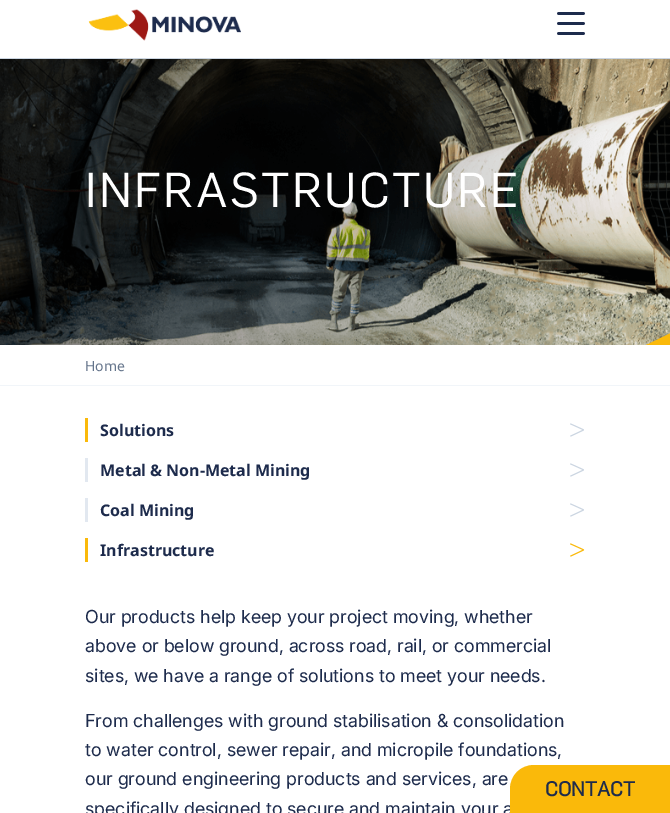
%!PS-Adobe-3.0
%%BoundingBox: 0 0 670 813
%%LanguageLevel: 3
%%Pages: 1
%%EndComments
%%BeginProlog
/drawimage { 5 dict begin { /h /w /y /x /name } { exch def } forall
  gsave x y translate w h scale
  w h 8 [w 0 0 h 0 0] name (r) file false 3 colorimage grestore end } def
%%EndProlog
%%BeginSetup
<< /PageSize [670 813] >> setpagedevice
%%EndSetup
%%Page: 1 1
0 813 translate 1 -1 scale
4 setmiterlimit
1 setgray
0 0 670 813 rectfill
(images/3.raw) 0 59 670 286 drawimage
gsave
611 35 59 310 rectclip
0.98 0.725 0.039 setrgbcolor
newpath 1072 219 moveto 611 453 lineto 611 362 lineto 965 191 lineto 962 197 lineto 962 183 lineto 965 189 lineto 611 18 lineto 611 -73 lineto 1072 161 lineto closepath fill
grestore
0.796 0.835 0.882 setrgbcolor
0 58 670 1 rectfill
1 setgray
646 35 24 12 rectfill
(images/1.raw) 88 9 153 32 drawimage
(images/2.raw) 557 12 28 23 drawimage
0.945 0.961 0.976 setrgbcolor
0 385 670 1 rectfill
0.98 0.725 0.039 setrgbcolor
85 418 3 24 rectfill
(images/4.raw) 570 423 14 14 drawimage
0.886 0.91 0.941 setrgbcolor
85 458 3 24 rectfill
(images/4.raw) 570 463 14 14 drawimage
85 498 3 24 rectfill
(images/4.raw) 570 503 14 14 drawimage
0.98 0.725 0.039 setrgbcolor
85 538 3 24 rectfill
(images/5.raw) 570 543 15 14 drawimage
/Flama-Regular [48 0 0 -48 0 0] selectfont
1 setgray
85 207 moveto 2.4 0 (INFRASTRUCTURE) ashow
/NotoSans-Regular [14 0 0 -14 0 0] selectfont
0.392 0.455 0.545 setrgbcolor
85 371 moveto (Home) show
/NotoSans-Bold [16 0 0 -16 0 0] selectfont
0.114 0.169 0.298 setrgbcolor
100 436 moveto (Solutions) show
100 476 moveto (Metal & Non-Metal Mining) show
100 516 moveto (Coal Mining) show
100 556 moveto (Infrastructure) show
/Inter-Regular [18 0 0 -18 0 0] selectfont
85 623 moveto (Our products help keep your project moving, whether) show
85 652 moveto (above or below ground, across road, rail, or commercial) show
85 682 moveto (sites, we have a range of solutions to meet your needs.) show
85 727 moveto (From challenges with ground stabilisation & consolidation) show
85 756 moveto (to water control, sewer repair, and micropile foundations,) show
85 785 moveto (our ground engineering products and services, are) show
85 815 moveto (specifically designed to secure and maintain your a) show
0.98 0.725 0.039 setrgbcolor
newpath 534 765 moveto 670 765 lineto 670 813 lineto 510 813 lineto 510 789 lineto 510 775.5 520.5 765 534 765 curveto closepath fill
/Flama-Bold [20 0 0 -20 0 0] selectfont
0.114 0.169 0.298 setrgbcolor
545 796 moveto (CONTACT) show
showpage
%%EOF
